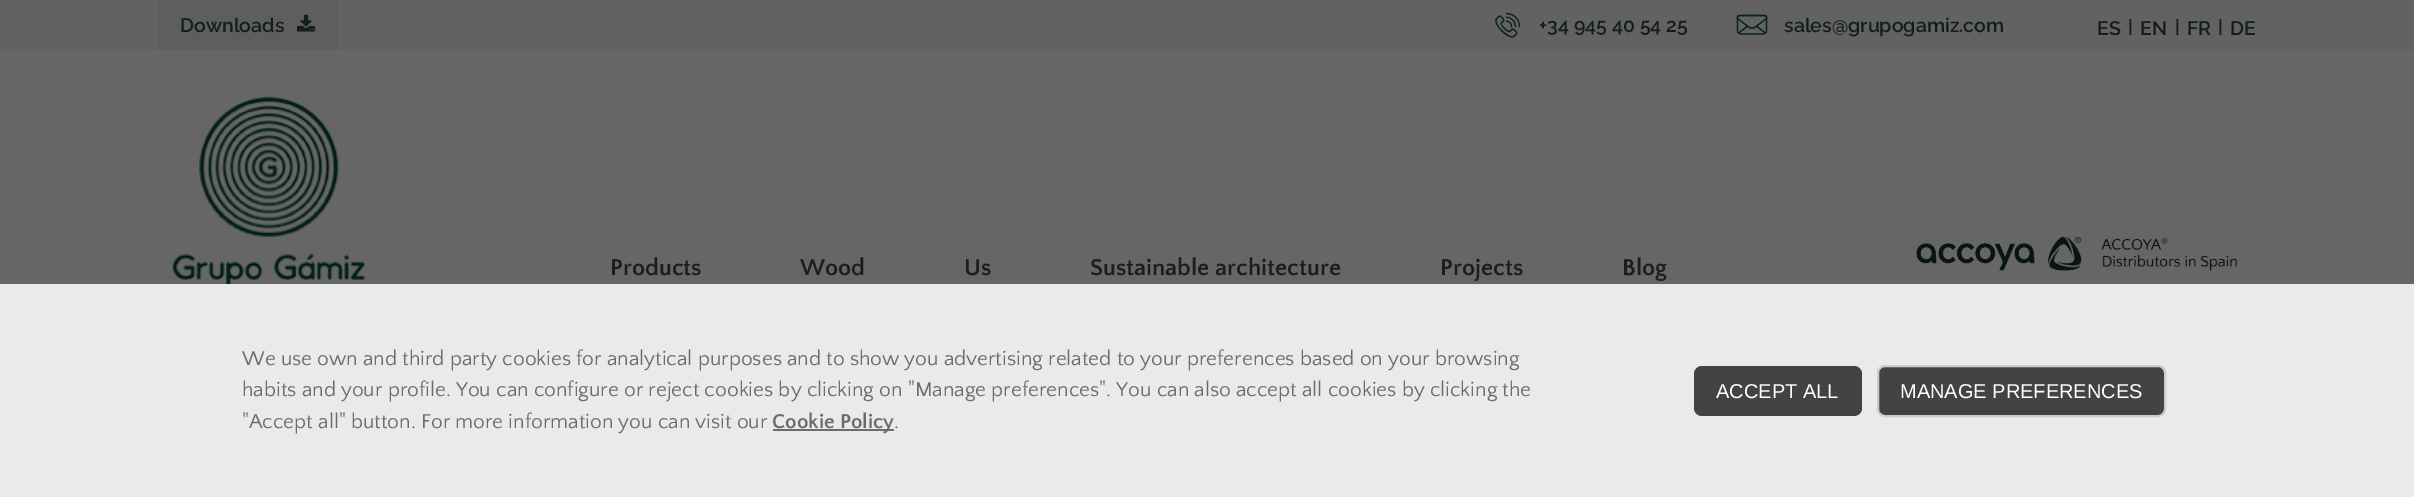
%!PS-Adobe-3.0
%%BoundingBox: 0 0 2414 497
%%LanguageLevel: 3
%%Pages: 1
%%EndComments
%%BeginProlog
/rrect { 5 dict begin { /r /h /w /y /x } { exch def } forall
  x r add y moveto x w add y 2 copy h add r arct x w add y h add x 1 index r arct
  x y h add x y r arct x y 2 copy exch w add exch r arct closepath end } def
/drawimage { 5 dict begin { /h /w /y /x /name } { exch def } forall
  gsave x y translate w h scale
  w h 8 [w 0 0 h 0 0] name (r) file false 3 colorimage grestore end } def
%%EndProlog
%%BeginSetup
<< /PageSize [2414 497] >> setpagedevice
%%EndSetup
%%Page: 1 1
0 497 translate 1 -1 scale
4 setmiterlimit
0.384 setgray
0 0 2414 497 rectfill
0.369 setgray
158 0 180 50 rectfill
(images/1.raw) 297 14 19 18 drawimage
(images/2.raw) 1495 12 26 26 drawimage
(images/3.raw) 1736 14 32 21 drawimage
0.4 setgray
0 50 2414 234 rectfill
(images/4.raw) 172 95 194 189 drawimage
(images/5.raw) 1916 236 322 35 drawimage
0.918 setgray
0 284 2414 213 rectfill
0.42 0.424 0.424 setrgbcolor
773 429 121 2 rectfill
0.263 0.263 0.267 setrgbcolor
1694 366 168 50 8 rrect fill
1878 366 287 50 7 rrect gsave fill grestore
0.8 setgray
2 setlinewidth
stroke
/Raleway-SemiBold [19.5 0 0 -19.5 0 0] selectfont
0.075 0.122 0.086 setrgbcolor
180 32 moveto (Downloads) show
1539 32 moveto (+34 945 40 54 25) show
1784 32 moveto (sales@grupogamiz.com) show
2097 35 moveto (ES) show
/Raleway-SemiBold [18 0 0 -18 0 0] selectfont
2128 33 moveto (|) show
/Raleway-SemiBold [19.5 0 0 -19.5 0 0] selectfont
2140 35 moveto (EN) show
/Raleway-SemiBold [18 0 0 -18 0 0] selectfont
2175 33 moveto (|) show
/Raleway-SemiBold [19.5 0 0 -19.5 0 0] selectfont
2187 35 moveto (FR) show
/Raleway-SemiBold [18 0 0 -18 0 0] selectfont
2218 33 moveto (|) show
/Raleway-SemiBold [19.5 0 0 -19.5 0 0] selectfont
2230 35 moveto (DE) show
/QuattrocentoSans-Bold [24 0 0 -24 0 0] selectfont
0.114 setgray
610 275 moveto (Products) show
800 275 moveto (Wood) show
964 275 moveto (Us) show
1090 275 moveto (Sustainable architecture) show
1440 275 moveto (Projects) show
1622 275 moveto (Blog) show
/QuattrocentoSans-Regular [21 0 0 -21 0 0] selectfont
0.42 0.424 0.424 setrgbcolor
242 365 moveto (We use own and third party cookies for analytical purposes and to show you advertising related to your preferences based on your browsing) show
242 396 moveto (habits and your profile. You can configure or reject cookies by clicking on "Manage preferences". You can also accept all cookies by clicking the) show
242 428 moveto ("Accept all" button. For more information you can visit our) show
/QuattrocentoSans-Bold [21 0 0 -21 0 0] selectfont
772 428 moveto (Cookie Policy) show
/QuattrocentoSans-Regular [21 0 0 -21 0 0] selectfont
894 428 moveto (.) show
/LiberationSans-Regular [20 0 0 -20 0 0] selectfont
1 setgray
1716 398 moveto (ACCEPT ALL) show
1900 398 moveto (MANAGE PREFERENCES) show
showpage
%%EOF
